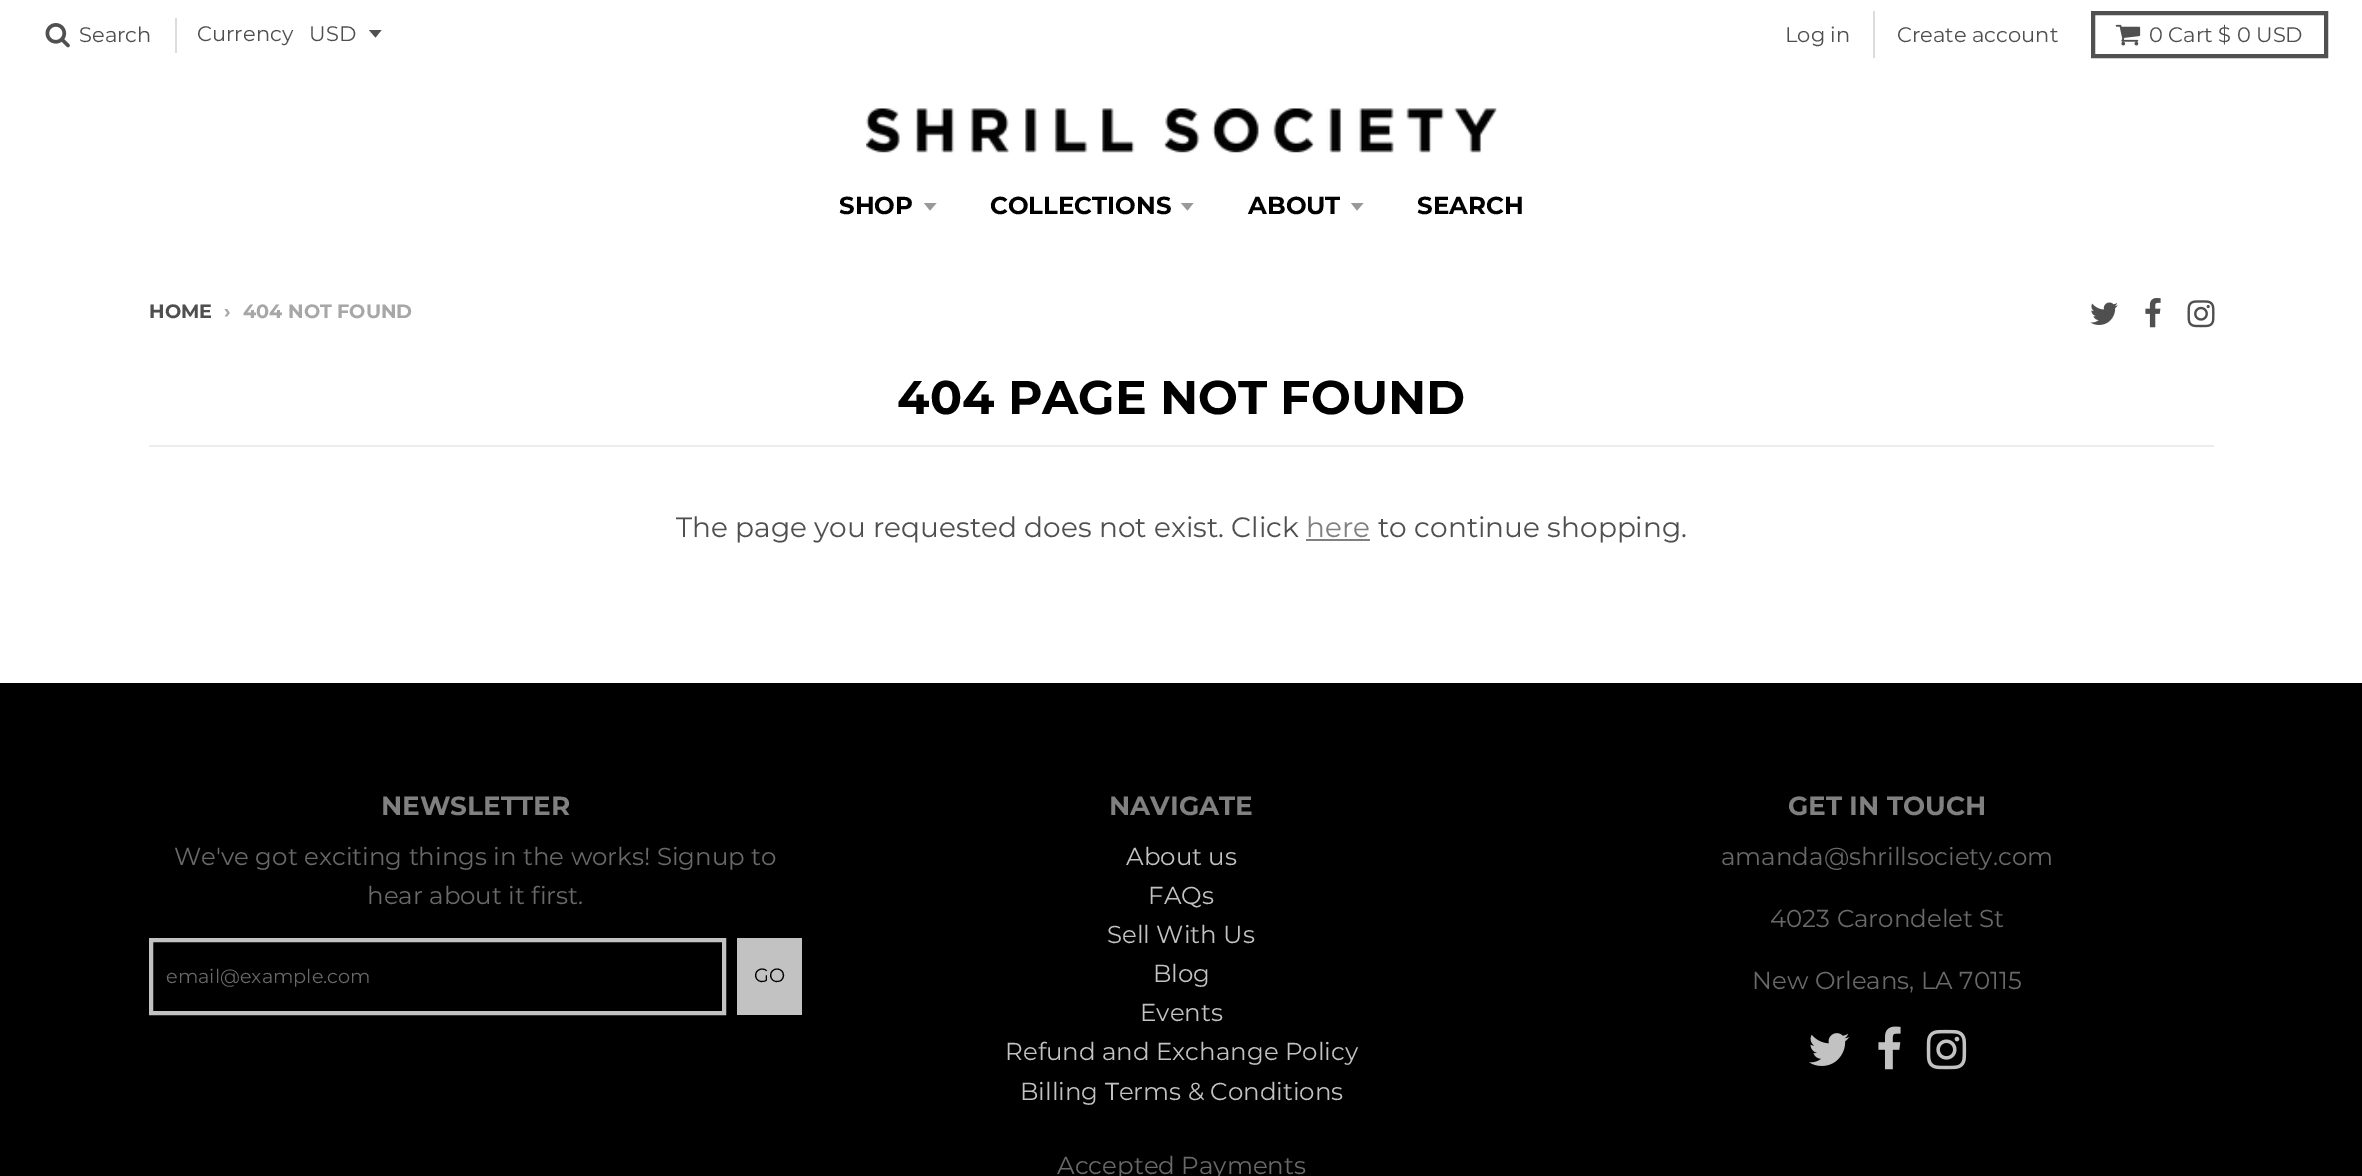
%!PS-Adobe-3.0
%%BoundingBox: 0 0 2362 1176
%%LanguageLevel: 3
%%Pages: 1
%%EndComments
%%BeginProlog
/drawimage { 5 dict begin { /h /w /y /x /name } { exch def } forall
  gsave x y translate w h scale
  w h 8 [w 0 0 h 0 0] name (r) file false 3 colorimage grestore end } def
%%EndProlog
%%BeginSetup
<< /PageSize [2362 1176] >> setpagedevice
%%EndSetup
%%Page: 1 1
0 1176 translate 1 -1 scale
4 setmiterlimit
1 setgray
0 0 2362 1176 rectfill
(images/1.raw) 45 23 25 25 drawimage
0.863 setgray
175 18 2 35 rectfill
0.314 setgray
newpath 369 30 moveto 375.5 37.5 lineto 381.5 30 lineto closepath fill
0.863 setgray
1873 11 2 47 rectfill
0.314 setgray
4 setlinewidth
2093 13 233 43 rectstroke
(images/2.raw) 2115 24 26 22 drawimage
(images/3.raw) 866 108 631 45 drawimage
0.6 setgray
newpath 924 203 moveto 930 210.5 lineto 936.5 203 lineto closepath fill
newpath 1181 203 moveto 1187.5 210.5 lineto 1193.5 203 lineto closepath fill
newpath 1351 203 moveto 1357 210.5 lineto 1363.5 203 lineto closepath fill
(images/4.raw) 2090 302 28 23 drawimage
(images/5.raw) 2145 298 16 30 drawimage
(images/6.raw) 2187 300 28 28 drawimage
0.929 setgray
149 445 2065 2 rectfill
0.502 setgray
1306 539 64 2 rectfill
0 setgray
0 683 2362 493 rectfill
0.761 setgray
151 940 573 73 rectstroke
737 938 65 77 rectfill
(images/7.raw) 1809 1033 41 33 drawimage
(images/8.raw) 1878 1026 23 44 drawimage
(images/9.raw) 1926 1029 41 41 drawimage
/Montserrat-Regular [21 0 0 -21 0 0] selectfont
0.31 setgray
79 42 moveto (Search) show
197 41 moveto (Currency) show
309 41 moveto (USD) show
1785 42 moveto (Log in) show
1897 42 moveto (Create account) show
2149 42 moveto (0 Cart $ 0 USD) show
/Montserrat-Bold [24.5 0 0 -24.5 0 0] selectfont
0 setgray
839 214 moveto (SHOP) show
990 214 moveto (COLLECTIONS) show
1248 214 moveto (ABOUT) show
1417 214 moveto (SEARCH) show
/Montserrat-Bold [19.25 0 0 -19.25 0 0] selectfont
0.31 setgray
149 318 moveto (HOME) show
0.655 setgray
224 318 moveto (›) show
243 318 moveto (404 NOT FOUND) show
/Montserrat-Bold [47.25 0 0 -47.25 0 0] selectfont
0 setgray
897 414 moveto (404 PAGE NOT FOUND) show
/Montserrat-Regular [28 0 0 -28 0 0] selectfont
0.31 setgray
676 537 moveto (The page you requested does not exist. Click) show
0.502 setgray
1306 537 moveto (here) show
0.31 setgray
1378 537 moveto (to continue shopping.) show
/Montserrat-Bold [26.25 0 0 -26.25 0 0] selectfont
0.502 setgray
381 815 moveto (NEWSLETTER) show
/Montserrat-Regular [24.5 0 0 -24.5 0 0] selectfont
0.412 setgray
174 865 moveto (We've got exciting things in the works! Signup to) show
367 904 moveto (hear about it first.) show
/Montserrat-Regular [19.25 0 0 -19.25 0 0] selectfont
166 983 moveto (email@example.com) show
0 setgray
754 982 moveto (GO) show
/Montserrat-Bold [26.25 0 0 -26.25 0 0] selectfont
0.502 setgray
1109 815 moveto (NAVIGATE) show
/Montserrat-Regular [24.5 0 0 -24.5 0 0] selectfont
0.761 setgray
1126 865 moveto (About us) show
1148 904 moveto (FAQs) show
1107 943 moveto (Sell With Us) show
1153 982 moveto (Blog) show
1140 1021 moveto (Events) show
1005 1060 moveto (Refund and Exchange Policy) show
1020 1100 moveto (Billing Terms & Conditions) show
/Montserrat-Bold [26.25 0 0 -26.25 0 0] selectfont
0.502 setgray
1788 815 moveto (GET IN TOUCH) show
/Montserrat-Regular [24.5 0 0 -24.5 0 0] selectfont
0.412 setgray
1721 865 moveto (amanda@shrillsociety.com) show
1770 927 moveto (4023 Carondelet St) show
1752 989 moveto (New Orleans, LA 70115) show
1057 1174 moveto (Accepted Payments) show
showpage
%%EOF
